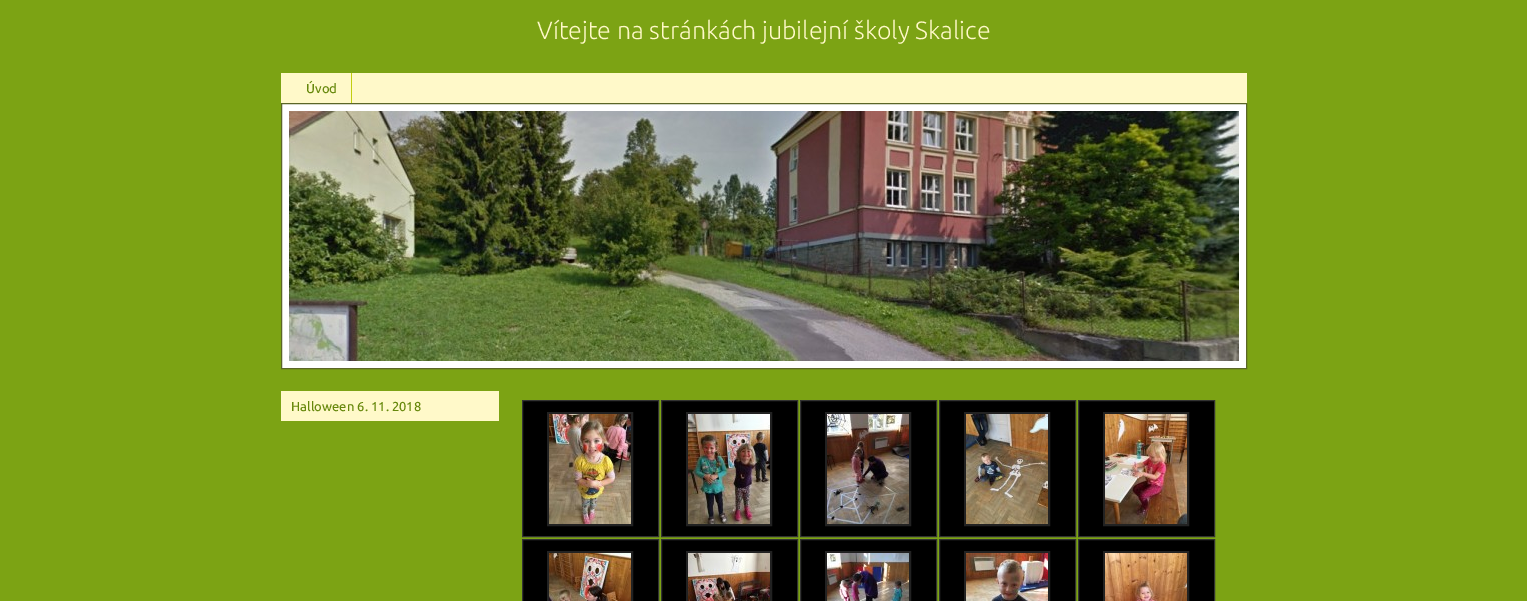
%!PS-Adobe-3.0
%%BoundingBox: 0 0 1527 601
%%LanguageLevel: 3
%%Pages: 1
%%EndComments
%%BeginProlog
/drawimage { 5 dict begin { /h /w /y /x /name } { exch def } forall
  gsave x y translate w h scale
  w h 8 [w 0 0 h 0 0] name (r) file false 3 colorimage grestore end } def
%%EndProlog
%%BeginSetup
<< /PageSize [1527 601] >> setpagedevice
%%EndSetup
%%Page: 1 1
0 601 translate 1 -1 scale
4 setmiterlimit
0.486 0.639 0.078 setrgbcolor
0 0 1527 601 rectfill
1 0.976 0.788 setrgbcolor
281 73 966 30 rectfill
0.761 0.808 0.063 setrgbcolor
351 73 1 30 rectfill
1 setgray
newpath 281.5 103.5 moveto 1246.5 103.5 lineto 1246.5 368.5 lineto 281.5 368.5 lineto closepath gsave fill grestore
0.357 0.4 0.153 setrgbcolor
stroke
(images/1.raw) 289 111 950 250 drawimage
1 0.976 0.788 setrgbcolor
281 391 218 30 rectfill
0 setgray
newpath 522.5 400.5 moveto 658.5 400.5 lineto 658.5 536.5 lineto 522.5 536.5 lineto closepath gsave fill grestore
0.2 setgray
stroke
0.133 setgray
2 setlinewidth
548 413 84 112 rectstroke
(images/2.raw) 549 414 82 110 drawimage
0 setgray
newpath 661.5 400.5 moveto 797.5 400.5 lineto 797.5 536.5 lineto 661.5 536.5 lineto closepath gsave fill grestore
0.2 setgray
1 setlinewidth
stroke
0.133 setgray
2 setlinewidth
687 413 84 112 rectstroke
(images/3.raw) 688 414 82 110 drawimage
0 setgray
newpath 800.5 400.5 moveto 936.5 400.5 lineto 936.5 536.5 lineto 800.5 536.5 lineto closepath gsave fill grestore
0.2 setgray
1 setlinewidth
stroke
0.133 setgray
2 setlinewidth
826 413 84 112 rectstroke
(images/4.raw) 827 414 82 110 drawimage
0 setgray
newpath 939.5 400.5 moveto 1075.5 400.5 lineto 1075.5 536.5 lineto 939.5 536.5 lineto closepath gsave fill grestore
0.2 setgray
1 setlinewidth
stroke
0.133 setgray
2 setlinewidth
965 413 84 112 rectstroke
(images/5.raw) 966 414 82 110 drawimage
0 setgray
newpath 1078.5 400.5 moveto 1214.5 400.5 lineto 1214.5 536.5 lineto 1078.5 536.5 lineto closepath gsave fill grestore
0.2 setgray
1 setlinewidth
stroke
0.133 setgray
2 setlinewidth
1104 413 84 112 rectstroke
(images/6.raw) 1105 414 82 110 drawimage
0 setgray
newpath 522.5 539.5 moveto 658.5 539.5 lineto 658.5 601.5 lineto 522.5 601.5 lineto closepath gsave fill grestore
0.2 setgray
1 setlinewidth
stroke
0.133 setgray
2 setlinewidth
548 552 84 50 rectstroke
(images/7.raw) 549 553 82 48 drawimage
0 setgray
newpath 661.5 539.5 moveto 797.5 539.5 lineto 797.5 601.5 lineto 661.5 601.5 lineto closepath gsave fill grestore
0.2 setgray
1 setlinewidth
stroke
0.133 setgray
2 setlinewidth
687 552 84 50 rectstroke
(images/8.raw) 688 553 82 48 drawimage
0 setgray
newpath 800.5 539.5 moveto 936.5 539.5 lineto 936.5 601.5 lineto 800.5 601.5 lineto closepath gsave fill grestore
0.2 setgray
1 setlinewidth
stroke
0.133 setgray
2 setlinewidth
826 552 84 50 rectstroke
(images/9.raw) 827 553 82 48 drawimage
0 setgray
newpath 939.5 539.5 moveto 1075.5 539.5 lineto 1075.5 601.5 lineto 939.5 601.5 lineto closepath gsave fill grestore
0.2 setgray
1 setlinewidth
stroke
0.133 setgray
2 setlinewidth
965 552 84 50 rectstroke
(images/10.raw) 966 553 82 48 drawimage
0 setgray
newpath 1078.5 539.5 moveto 1214.5 539.5 lineto 1214.5 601.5 lineto 1078.5 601.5 lineto closepath gsave fill grestore
0.2 setgray
1 setlinewidth
stroke
0.133 setgray
2 setlinewidth
1104 552 84 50 rectstroke
(images/11.raw) 1105 553 82 48 drawimage
/Ubuntu-Light [25 0 0 -25 0 0] selectfont
1 0.976 0.788 setrgbcolor
537 39 moveto (Vítejte na stránkách jubilejní školy Skalice) show
/Ubuntu-Medium [13 0 0 -13 0 0] selectfont
0.4 0.533 0.043 setrgbcolor
306 93 moveto (Úvod) show
291 411 moveto (Halloween 6. 11. 2018) show
showpage
%%EOF
